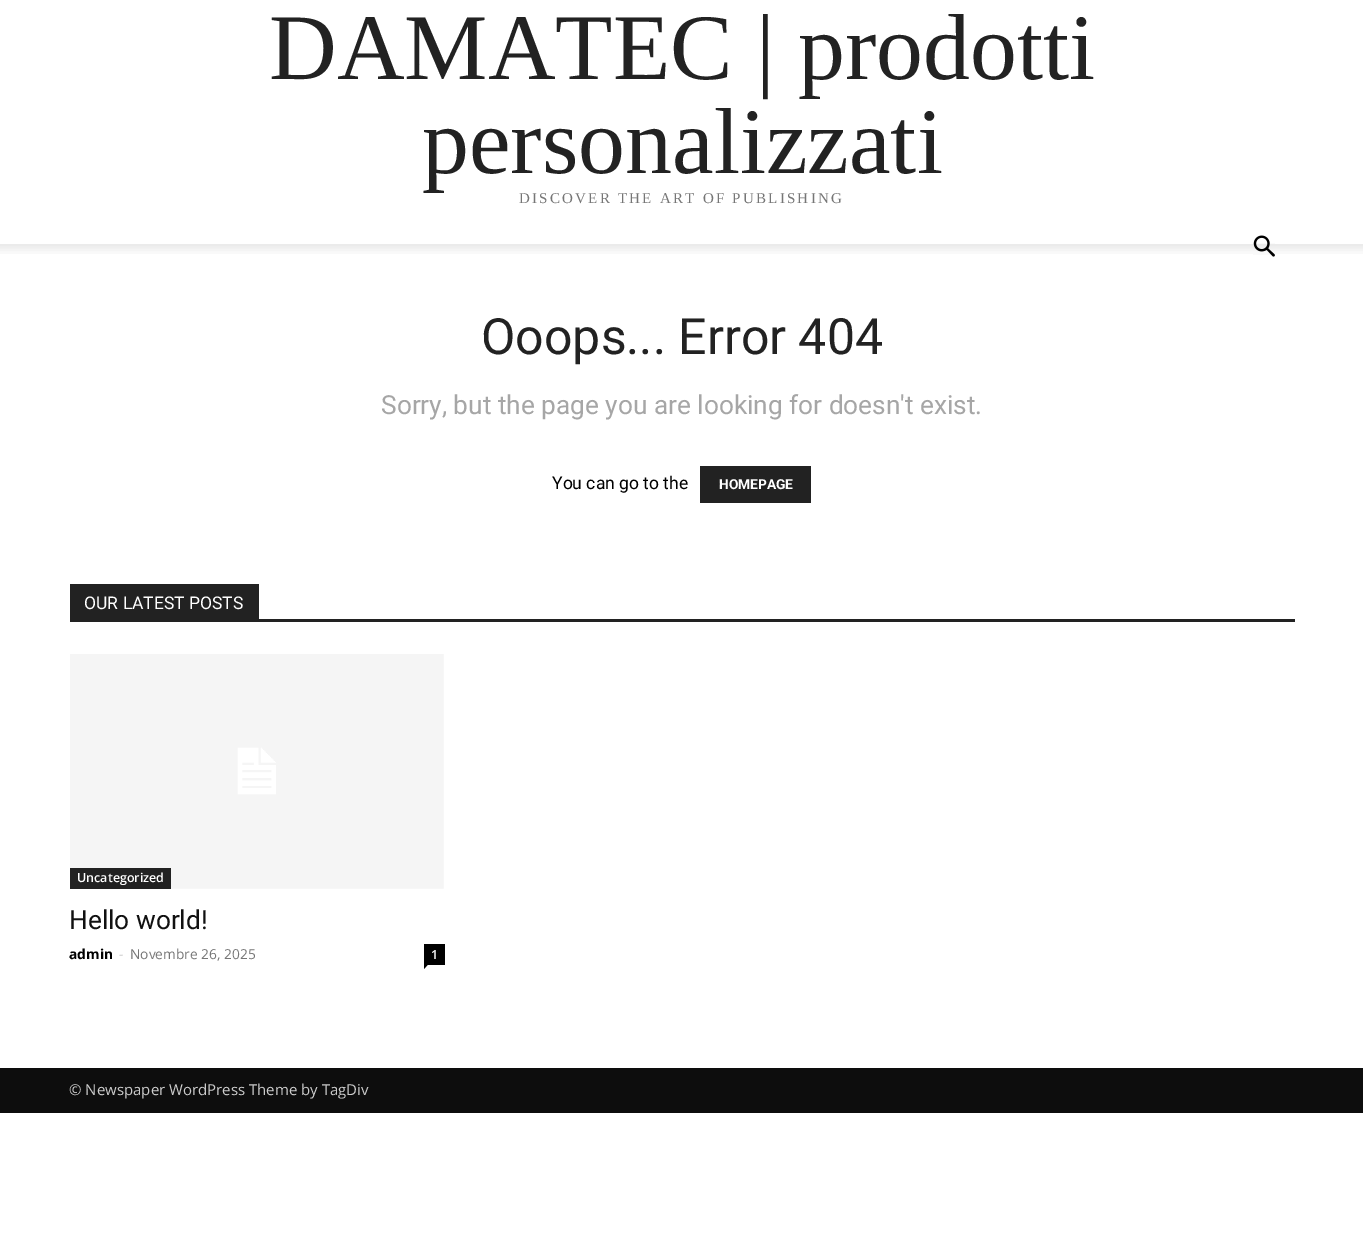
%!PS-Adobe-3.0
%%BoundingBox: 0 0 1363 1234
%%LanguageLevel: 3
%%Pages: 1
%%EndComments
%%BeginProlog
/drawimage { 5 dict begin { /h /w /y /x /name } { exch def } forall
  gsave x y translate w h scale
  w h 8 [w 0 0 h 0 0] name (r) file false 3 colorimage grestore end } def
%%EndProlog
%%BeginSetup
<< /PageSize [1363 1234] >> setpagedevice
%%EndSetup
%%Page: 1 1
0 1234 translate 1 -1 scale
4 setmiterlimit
1 setgray
0 0 1363 1234 rectfill
(images/2.raw) 0 244 1363 10 drawimage
(images/1.raw) 1253 235 22 22 drawimage
0.133 setgray
700 466 111 37 rectfill
70 619 1225 3 rectfill
70 584 189 35 rectfill
(images/3.raw) 70 654 374 235 drawimage
70 868 101 21 rectfill
0 setgray
424 944 21 21 rectfill
newpath 424 965 moveto 427.5 965 lineto 424 969 lineto closepath fill
0.051 setgray
0 1068 1363 45 rectfill
/LiberationSerif-Regular [93.75 0 0 -93.75 0 0] selectfont
0.133 setgray
269 79 moveto (DAMATEC | prodotti) show
422 173 moveto (personalizzati) show
/LiberationSerif-Regular [15 0 0 -15 0 0] selectfont
0.463 setgray
519 203 moveto 2.25 0 (DISCOVER THE ART OF PUBLISHING) ashow
/Roboto-Regular [50 0 0 -50 0 0] selectfont
0.133 setgray
481 354 moveto (Ooops... Error 404) show
/Roboto-Regular [26.25 0 0 -26.25 0 0] selectfont
0.651 setgray
381 414 moveto (Sorry, but the page you are looking for doesn't exist.) show
/Roboto-Regular [17.5 0 0 -17.5 0 0] selectfont
0 setgray
552 489 moveto (You can go to the) show
/Roboto-Bold [13.75 0 0 -13.75 0 0] selectfont
1 setgray
719 489 moveto (HOMEPAGE) show
/Roboto-Regular [17.5 0 0 -17.5 0 0] selectfont
84 609 moveto (OUR LATEST POSTS) show
/OpenSans-SemiBold [12.5 0 0 -12.5 0 0] selectfont
77 882 moveto (Uncategorized) show
/Roboto-Regular [26.25 0 0 -26.25 0 0] selectfont
0.067 setgray
69 929 moveto (Hello world!) show
/OpenSans-Bold [13.75 0 0 -13.75 0 0] selectfont
0 setgray
69 959 moveto (admin) show
/OpenSans-Regular [13.75 0 0 -13.75 0 0] selectfont
0.8 setgray
119 959 moveto (-) show
0.463 setgray
130 959 moveto (Novembre 26, 2025) show
/OpenSans-SemiBold [12.5 0 0 -12.5 0 0] selectfont
1 setgray
431 959 moveto (1) show
/OpenSans-Regular [15 0 0 -15 0 0] selectfont
0.8 setgray
69 1095 moveto (© Newspaper WordPress Theme by TagDiv) show
showpage
%%EOF
